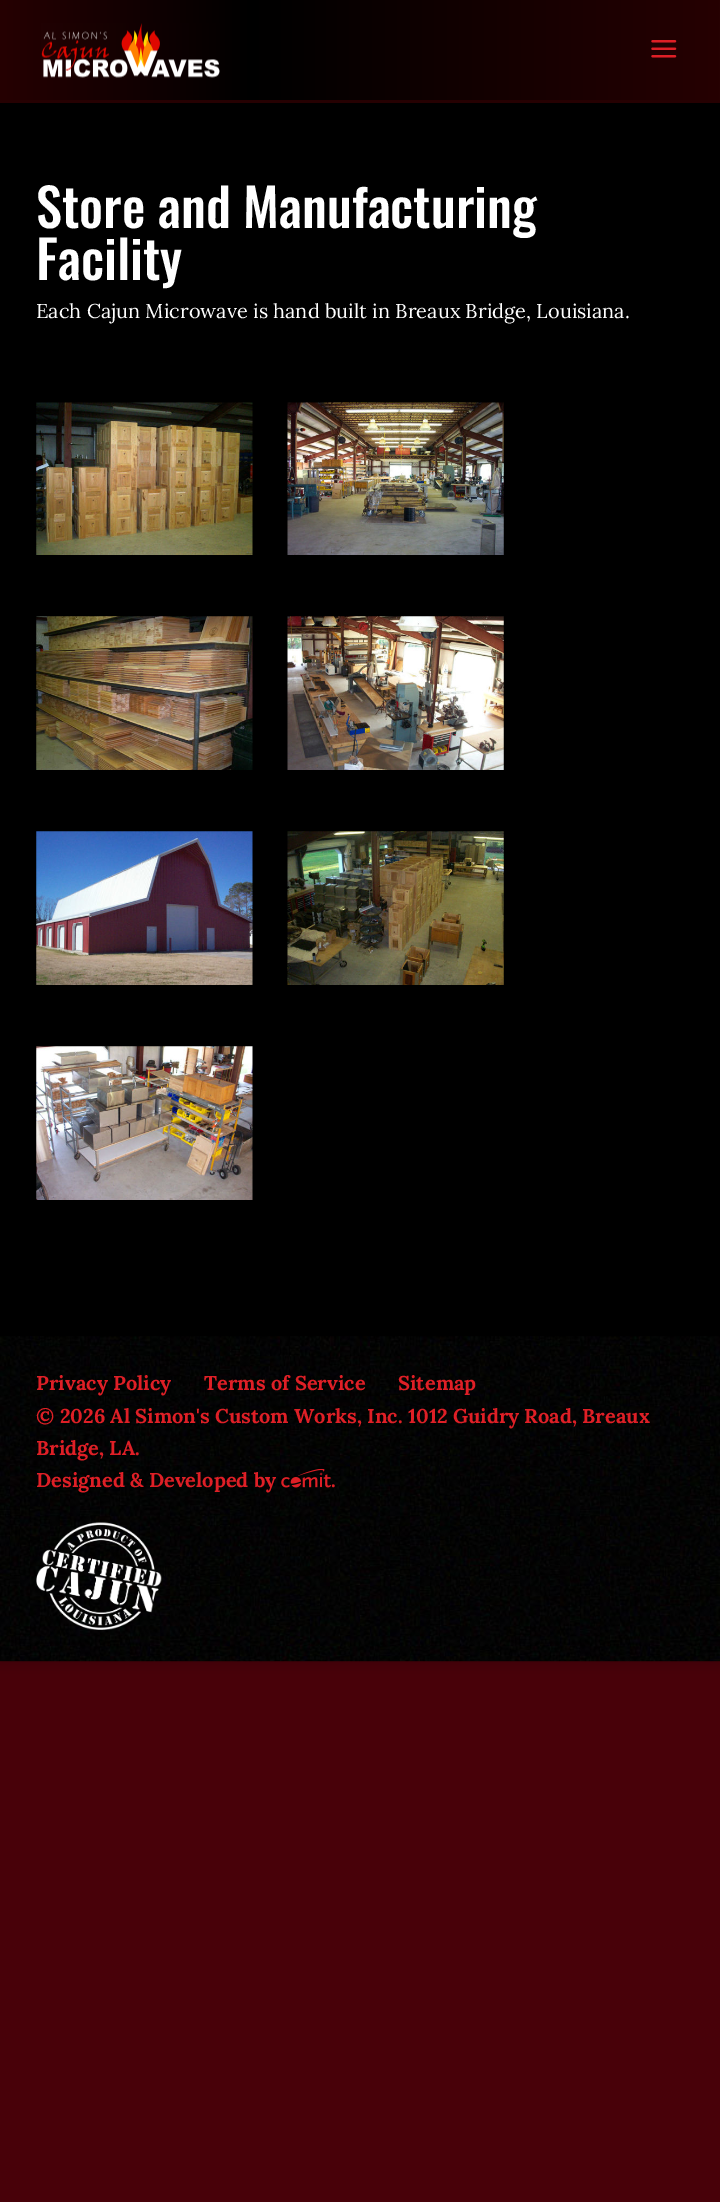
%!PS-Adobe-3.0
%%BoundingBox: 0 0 720 2202
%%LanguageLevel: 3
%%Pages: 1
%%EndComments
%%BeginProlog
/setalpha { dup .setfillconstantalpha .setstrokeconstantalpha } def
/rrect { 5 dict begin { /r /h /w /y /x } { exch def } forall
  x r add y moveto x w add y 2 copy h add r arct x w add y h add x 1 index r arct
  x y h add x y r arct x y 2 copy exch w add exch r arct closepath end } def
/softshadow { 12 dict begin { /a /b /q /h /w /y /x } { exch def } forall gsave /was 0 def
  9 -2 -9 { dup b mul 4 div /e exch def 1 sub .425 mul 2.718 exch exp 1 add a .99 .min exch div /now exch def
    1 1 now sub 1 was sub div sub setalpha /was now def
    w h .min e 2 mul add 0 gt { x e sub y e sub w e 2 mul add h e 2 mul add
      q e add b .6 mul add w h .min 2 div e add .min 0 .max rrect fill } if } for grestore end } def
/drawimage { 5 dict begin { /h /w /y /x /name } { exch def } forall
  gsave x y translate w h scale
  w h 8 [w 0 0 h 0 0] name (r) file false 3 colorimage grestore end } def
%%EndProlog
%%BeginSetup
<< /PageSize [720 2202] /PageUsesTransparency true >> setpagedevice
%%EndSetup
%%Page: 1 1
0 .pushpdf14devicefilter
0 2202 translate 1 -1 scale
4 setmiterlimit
0.282 0.004 0.035 setrgbcolor
0 0 720 2202 rectfill
0 setgray
0 0 720 1661 0 6 0.2 softshadow
gsave newpath 0 0 moveto 720 0 lineto 720 100 lineto 0 100 lineto closepath clip newpath
<< /ShadingType 2 /ColorSpace /DeviceRGB /Coords [0 50 720 50] /Extend [true true] /Function << /FunctionType 3 /Domain [0 1] /Functions [<< /FunctionType 2 /Domain [0 1] /C0 [0.149 0.004 0.008] /C1 [0 0 0] /N 1 >> << /FunctionType 2 /Domain [0 1] /C0 [0 0 0] /C1 [0.149 0.004 0.008] /N 1 >>] /Bounds [0.35] /Encode [0 1 0 1] >> >> shfill grestore
0.149 0.004 0.008 setrgbcolor
0 100 720 3 rectfill
(images/1.raw) 41 23 179 55 drawimage
(images/2.raw) 651 40 26 18 drawimage
0 setgray
0 103 720 1233 rectfill
(images/3.raw) 36 402 217 153 drawimage
(images/4.raw) 287 402 217 153 drawimage
(images/5.raw) 36 616 217 154 drawimage
(images/6.raw) 287 616 217 154 drawimage
(images/7.raw) 36 831 217 154 drawimage
(images/8.raw) 287 831 217 154 drawimage
(images/9.raw) 36 1046 217 154 drawimage
(images/10.raw) 0 1336 720 326 drawimage
(images/11.raw) 281 1469 50 19 drawimage
(images/12.raw) 36 1522 126 108 drawimage
/Oswald-Medium [52.5 0 0 -52.5 0 0] selectfont
1 setgray
36 228 moveto (Store and Manufacturing) show
36 280 moveto (Facility) show
/Lora-Regular [20 0 0 -20 0 0] selectfont
36 318 moveto (Each Cajun Microwave is hand built in Breaux Bridge, Louisiana.) show
/Lora-Bold [20 0 0 -20 0 0] selectfont
0.875 0.122 0.149 setrgbcolor
36 1390 moveto (Privacy Policy) show
204 1390 moveto (Terms of Service) show
398 1390 moveto (Sitemap) show
36 1423 moveto (© 2026 Al Simon's Custom Works, Inc. 1012 Guidry Road, Breaux) show
36 1455 moveto (Bridge, LA.) show
36 1487 moveto (Designed & Developed by) show
331 1487 moveto (.) show
.poppdf14devicefilter showpage
%%EOF
